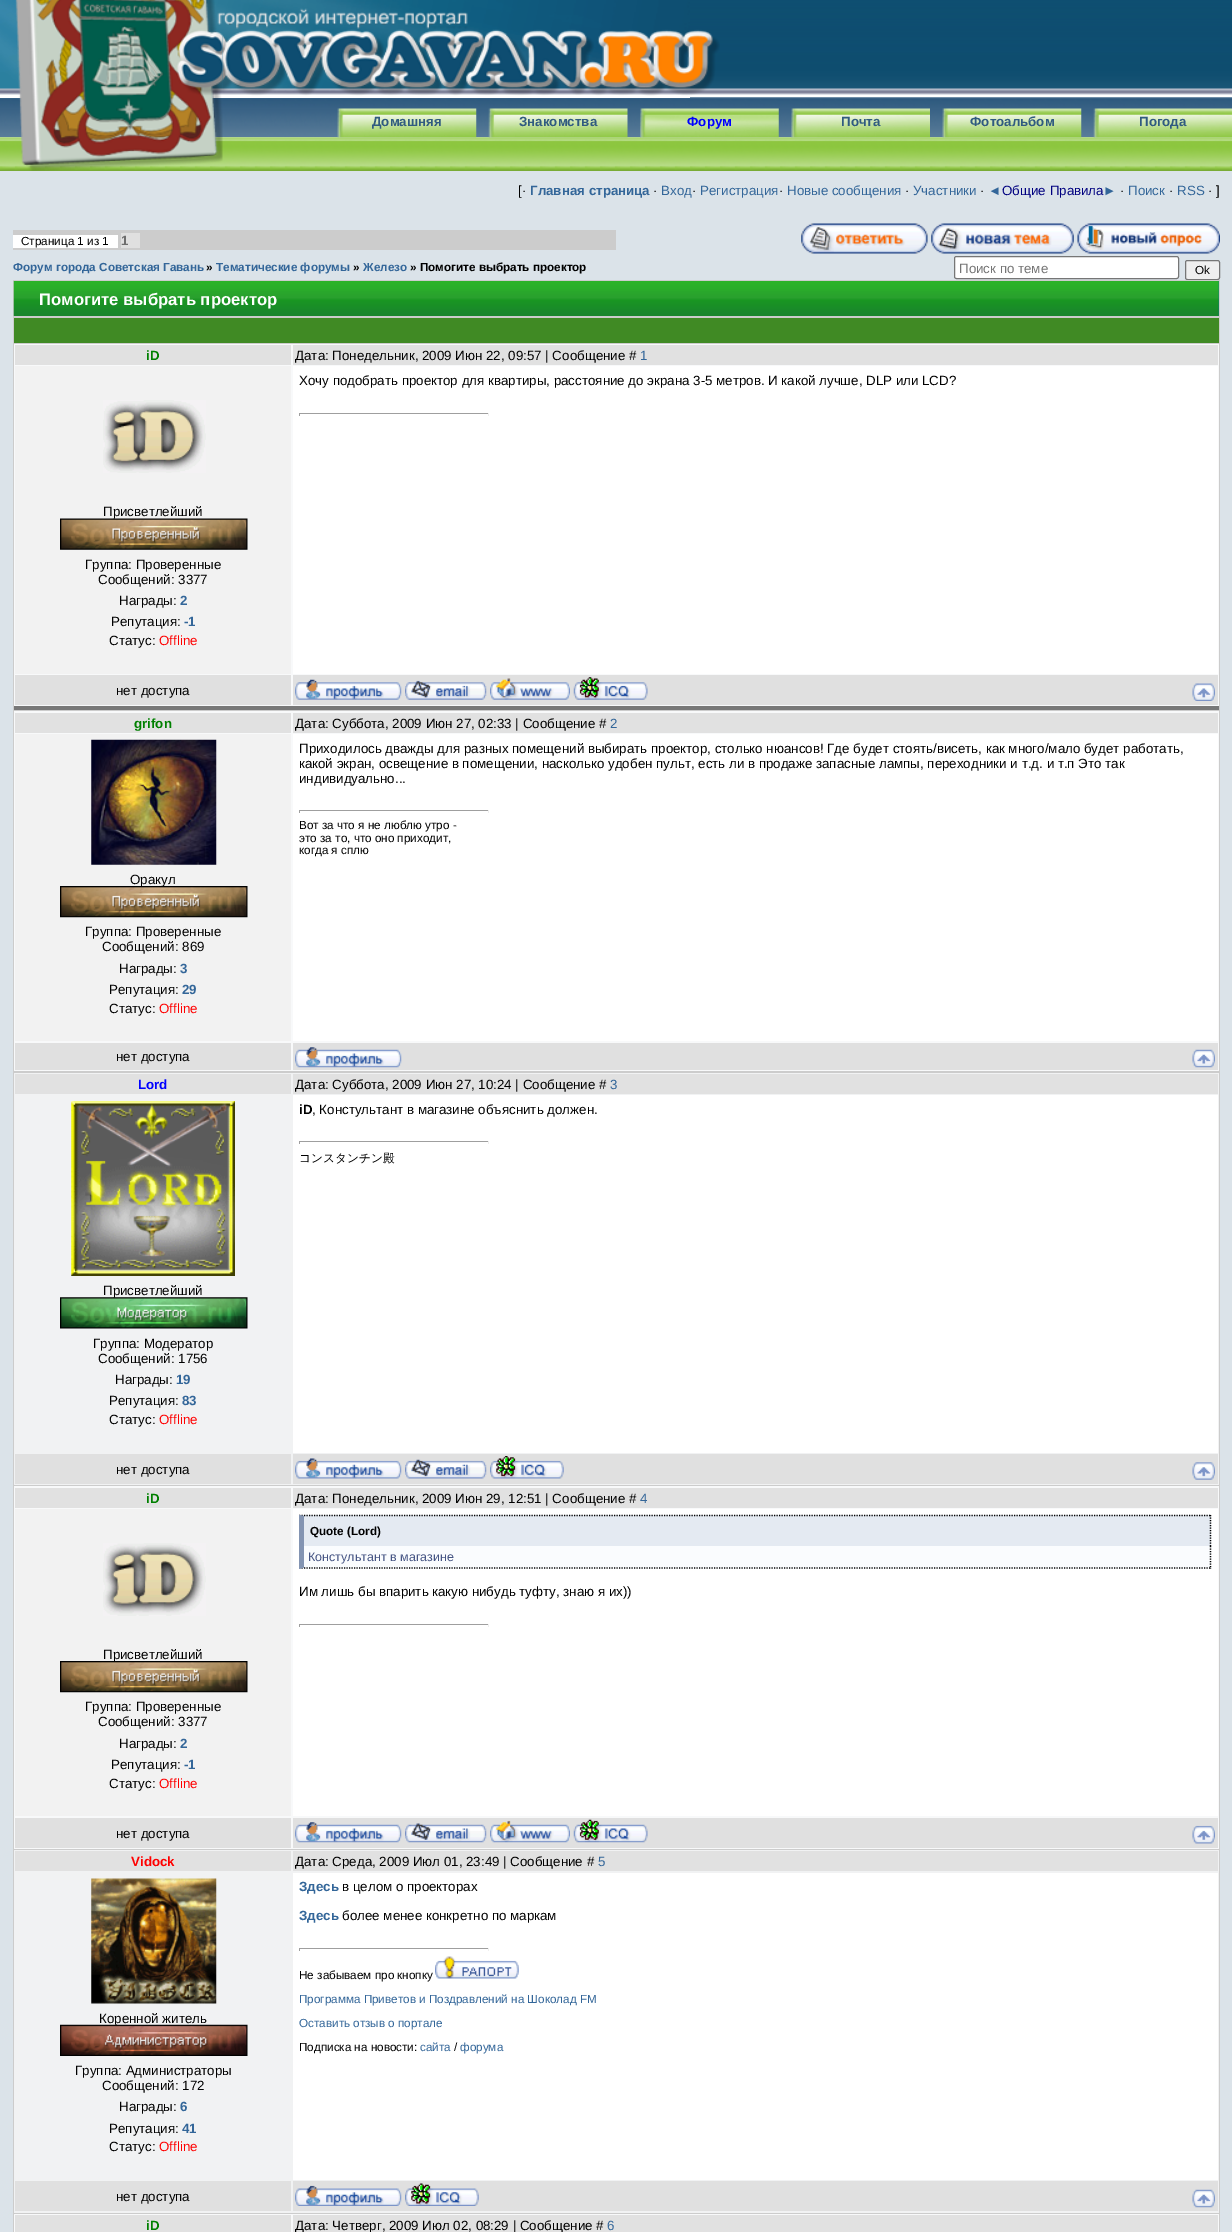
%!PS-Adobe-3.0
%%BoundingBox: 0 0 1232 2232
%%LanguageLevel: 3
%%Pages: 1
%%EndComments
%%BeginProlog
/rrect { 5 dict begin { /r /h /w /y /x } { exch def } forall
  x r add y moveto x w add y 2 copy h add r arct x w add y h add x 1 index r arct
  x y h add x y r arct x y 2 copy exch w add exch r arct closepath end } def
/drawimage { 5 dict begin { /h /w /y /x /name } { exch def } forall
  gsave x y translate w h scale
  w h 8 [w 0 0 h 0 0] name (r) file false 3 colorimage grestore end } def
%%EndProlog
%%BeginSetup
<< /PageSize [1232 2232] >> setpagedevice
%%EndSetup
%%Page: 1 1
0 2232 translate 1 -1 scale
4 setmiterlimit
0.859 0.89 0.914 setrgbcolor
0 0 1232 2232 rectfill
1 setgray
690 95 542 3 rectfill
(images/1.raw) 690 0 542 95 drawimage
(images/5.raw) 0 97 1232 41 drawimage
0 95 690 3 rectfill
(images/2.raw) 0 0 690 95 drawimage
(images/12.raw) 0 137 1232 34 drawimage
(images/3.raw) 15 0 208 171 drawimage
(images/4.raw) 222 8 498 88 drawimage
(images/6.raw) 337 108 140 30 drawimage
(images/7.raw) 488 108 140 30 drawimage
(images/8.raw) 640 108 139 30 drawimage
(images/9.raw) 791 108 139 30 drawimage
(images/10.raw) 942 108 140 30 drawimage
(images/11.raw) 1093 108 139 30 drawimage
0.8 setgray
13 230 603 20 rectfill
1 setgray
13 235 105 13 rectfill
0.878 setgray
121 233 19 15 rectfill
(images/13.raw) 801 223 127 31 drawimage
(images/14.raw) 931 223 143 31 drawimage
(images/15.raw) 1077 223 143 31 drawimage
1 setgray
954.5 256.5 224 22 2 rrect gsave fill grestore
0.463 setgray
stroke
0.937 setgray
1185.5 260.5 34 19 2 rrect gsave fill grestore
0.463 setgray
stroke
0.8 setgray
13 280 1207 1952 rectfill
(images/16.raw) 13 281 1206 35 drawimage
0.251 0.541 0.141 setrgbcolor
14 318 1205 25 rectfill
0.973 0.976 0.98 setrgbcolor
14 344 1205 362 rectfill
0.471 setgray
14 706 1205 4 rectfill
0.882 setgray
15 345 276 20 rectfill
293 345 925 20 rectfill
1 setgray
293 366 925 308 rectfill
0.624 setgray
299 413 190 1 rectfill
0.933 setgray
488 413 1 3 rectfill
0.624 setgray
299 413 1 3 rectfill
0.949 setgray
15 366 276 308 rectfill
(images/17.raw) 103 400 103 73 drawimage
0.878 setgray
15 675 276 30 rectfill
293 675 925 30 rectfill
(images/19.raw) 295 679 107 21 drawimage
(images/20.raw) 405 680 82 20 drawimage
(images/21.raw) 490 678 80 22 drawimage
(images/22.raw) 573 677 75 23 drawimage
(images/23.raw) 1192 683 23 18 drawimage
0.973 0.976 0.98 setrgbcolor
14 711 1205 360 rectfill
0.882 setgray
15 713 276 20 rectfill
293 713 925 20 rectfill
1 setgray
293 734 925 307 rectfill
0.624 setgray
299 810 190 1 rectfill
0.933 setgray
488 810 1 3 rectfill
0.624 setgray
299 810 1 3 rectfill
0.949 setgray
15 734 276 307 rectfill
(images/24.raw) 91 739 126 126 drawimage
0.878 setgray
15 1043 276 27 rectfill
293 1043 925 27 rectfill
(images/26.raw) 295 1047 107 21 drawimage
(images/27.raw) 1192 1049 23 19 drawimage
0.945 0.949 0.953 setrgbcolor
14 1073 1205 412 rectfill
0.882 setgray
15 1074 276 20 rectfill
293 1074 925 20 rectfill
1 setgray
293 1095 925 358 rectfill
0.624 setgray
299 1141 190 1 rectfill
0.933 setgray
488 1141 1 3 rectfill
0.624 setgray
299 1141 1 3 rectfill
(images/28.raw) 71 1101 164 175 drawimage
0.878 setgray
15 1454 276 30 rectfill
293 1454 925 30 rectfill
(images/30.raw) 295 1458 107 21 drawimage
(images/31.raw) 405 1459 82 20 drawimage
(images/32.raw) 490 1456 74 23 drawimage
(images/33.raw) 1192 1462 23 18 drawimage
0.973 0.976 0.98 setrgbcolor
14 1486 1205 363 rectfill
0.882 setgray
15 1488 276 20 rectfill
293 1488 925 20 rectfill
1 setgray
293 1509 925 307 rectfill
0.894 0.918 0.949 setrgbcolor
300 1515 911 31 rectfill
0 setgray
1.2 setlinewidth
[1.25 1.25] 0 setdash
newpath 299 1515.5 moveto 1211 1515.5 lineto stroke
newpath 1210.5 1515 moveto 1210.5 1546 lineto stroke
0.514 0.58 0.698 setrgbcolor
newpath 299 1546 moveto 299 1515 lineto 304 1516 lineto 304 1546 lineto closepath fill
0.98 0.988 0.996 setrgbcolor
299 1546 912 23 rectfill
0 setgray
newpath 1210.5 1546 moveto 1210.5 1569 lineto stroke
newpath 299 1568 moveto 1211 1568 lineto stroke
0.514 0.58 0.698 setrgbcolor
newpath 299 1569 moveto 299 1546 lineto 304 1546 lineto 304 1567.5 lineto closepath fill
0.624 setgray
299 1624 190 1 rectfill
0.933 setgray
488 1624 1 3 rectfill
0.624 setgray
299 1624 1 3 rectfill
0.949 setgray
15 1509 276 307 rectfill
(images/34.raw) 103 1543 103 73 drawimage
0.878 setgray
15 1818 276 30 rectfill
293 1818 925 30 rectfill
(images/26.raw) 295 1822 107 21 drawimage
(images/35.raw) 405 1823 82 20 drawimage
(images/36.raw) 490 1820 80 23 drawimage
(images/37.raw) 573 1819 75 24 drawimage
(images/38.raw) 1192 1825 23 19 drawimage
0.945 0.949 0.953 setrgbcolor
14 1850 1205 363 rectfill
0.882 setgray
15 1851 276 20 rectfill
293 1851 925 20 rectfill
1 setgray
293 1873 925 307 rectfill
0.624 setgray
299 1948 190 1 rectfill
0.933 setgray
488 1948 1 3 rectfill
0.624 setgray
299 1948 1 3 rectfill
(images/39.raw) 435 1956 84 23 drawimage
(images/40.raw) 91 1878 126 126 drawimage
0.878 setgray
15 2181 276 30 rectfill
293 2181 925 30 rectfill
(images/42.raw) 295 2185 107 21 drawimage
(images/43.raw) 405 2183 74 23 drawimage
(images/27.raw) 1192 2189 23 19 drawimage
0.973 0.976 0.98 setrgbcolor
14 2214 1205 18 rectfill
0.882 setgray
15 2215 276 17 rectfill
293 2215 925 17 rectfill
/LiberationSans-Bold [13.33 0 0 -13.33 0 0] selectfont
0.188 0.357 0.502 setrgbcolor
372 126 moveto (Домашняя) show
519 126 moveto (Знакомства) show
0 0 1 setrgbcolor
687 126 moveto (Форум) show
0.188 0.357 0.502 setrgbcolor
841 126 moveto (Почта) show
970 126 moveto (Фотоальбом) show
1139 126 moveto (Погода) show
/LiberationSans-Regular [13.33 0 0 -13.33 0 0] selectfont
0 setgray
518 195 moveto ([·) show
/LiberationSans-Bold [13.33 0 0 -13.33 0 0] selectfont
0.2 0.4 0.6 setrgbcolor
530 195 moveto (Главная страница) show
/LiberationSans-Regular [13.33 0 0 -13.33 0 0] selectfont
0 setgray
653 195 moveto (·) show
0.2 0.4 0.6 setrgbcolor
661 195 moveto (Вход) show
0 setgray
692 195 moveto (·) show
0.2 0.4 0.6 setrgbcolor
700 195 moveto (Регистрация) show
0 setgray
779 195 moveto (·) show
0.2 0.4 0.6 setrgbcolor
787 195 moveto (Новые сообщения) show
0 setgray
905 195 moveto (·) show
0.2 0.4 0.6 setrgbcolor
913 195 moveto (Участники) show
0 setgray
980 195 moveto (·) show
0.2 0.4 0.6 setrgbcolor
988 195 moveto (◄) show
0 0 0.502 setrgbcolor
1002 195 moveto (Общие Правила) show
0.2 0.4 0.6 setrgbcolor
1103 195 moveto (►) show
0 setgray
1120 195 moveto (·) show
0.2 0.4 0.6 setrgbcolor
1128 195 moveto (Поиск) show
0 setgray
1169 195 moveto (·) show
0.2 0.4 0.6 setrgbcolor
1177 195 moveto (RSS) show
0 setgray
1208 195 moveto (· ]) show
/LiberationSans-Regular [11.7 0 0 -11.7 0 0] selectfont
21 245 moveto (Страница 1 из 1) show
/LiberationSans-Bold [13.33 0 0 -13.33 0 0] selectfont
0.431 setgray
121 245 moveto (1) show
/LiberationSans-Bold [11.7 0 0 -11.7 0 0] selectfont
0.2 0.4 0.6 setrgbcolor
13 271 moveto (Форум города Советская Гавань) show
0 setgray
206 271 moveto (») show
0.2 0.4 0.6 setrgbcolor
216 271 moveto (Тематические форумы) show
0 setgray
353 271 moveto (») show
0.2 0.4 0.6 setrgbcolor
363 271 moveto (Железо) show
0 setgray
410 271 moveto (» Помогите выбрать проектор) show
/LiberationSans-Regular [13.33 0 0 -13.33 0 0] selectfont
0.459 setgray
959 273 moveto (Поиск по теме) show
/LiberationSans-Regular [11.7 0 0 -11.7 0 0] selectfont
0 setgray
1195 274 moveto (Ok) show
/LiberationSans-Bold [16.7 0 0 -16.7 0 0] selectfont
1 setgray
39 305 moveto (Помогите выбрать проектор) show
/LiberationSans-Bold [13.33 0 0 -13.33 0 0] selectfont
0 0.502 0 setrgbcolor
146 360 moveto (iD) show
/LiberationSans-Regular [13.33 0 0 -13.33 0 0] selectfont
0 setgray
295 360 moveto (Дата: Понедельник, 2009 Июн 22, 09:57 | Сообщение #) show
0.2 0.4 0.6 setrgbcolor
640 360 moveto (1) show
0 setgray
299 385 moveto (Хочу подобрать проектор для квартиры, расстояние до экрана 3-5 метров. И какой лучше, DLP или LCD?) show
103 516 moveto (Присветлейший) show
(images/18.raw) 60 518 188 32 drawimage
85 569 moveto (Группа: Проверенные) show
98 584 moveto (Сообщений: 3377) show
119 605 moveto (Награды:) show
/LiberationSans-Bold [13.33 0 0 -13.33 0 0] selectfont
0.2 0.4 0.6 setrgbcolor
180 605 moveto (2) show
/LiberationSans-Regular [13.33 0 0 -13.33 0 0] selectfont
0 setgray
111 626 moveto (Репутация:) show
/LiberationSans-Bold [13.33 0 0 -13.33 0 0] selectfont
0.2 0.4 0.6 setrgbcolor
184 626 moveto (-1) show
/LiberationSans-Regular [13.33 0 0 -13.33 0 0] selectfont
0 setgray
109 645 moveto (Статус:) show
1 0 0 setrgbcolor
159 645 moveto (Offline) show
0 setgray
116 695 moveto (нет доступа) show
/LiberationSans-Bold [13.33 0 0 -13.33 0 0] selectfont
0 0.502 0 setrgbcolor
134 728 moveto (grifon) show
/LiberationSans-Regular [13.33 0 0 -13.33 0 0] selectfont
0 setgray
295 728 moveto (Дата: Суббота, 2009 Июн 27, 02:33 | Сообщение #) show
0.2 0.4 0.6 setrgbcolor
610 728 moveto (2) show
0 setgray
299 753 moveto (Приходилось дважды для разных помещений выбирать проектор, столько нюансов! Где будет стоять/висеть, как много/мало будет работать,) show
299 768 moveto (какой экран, освещение в помещении, насколько удобен пульт, есть ли в продаже запасные лампы, переходники и т.д. и т.п Это так) show
299 783 moveto (индивидуально...) show
/LiberationSans-Regular [11.7 0 0 -11.7 0 0] selectfont
299 829 moveto (Вот за что я не люблю утро -) show
299 842 moveto (это за то, что оно приходит,) show
299 854 moveto (когда я сплю) show
/LiberationSans-Regular [13.33 0 0 -13.33 0 0] selectfont
130 884 moveto (Оракул) show
(images/25.raw) 60 886 188 32 drawimage
85 936 moveto (Группа: Проверенные) show
102 951 moveto (Сообщений: 869) show
119 973 moveto (Награды:) show
/LiberationSans-Bold [13.33 0 0 -13.33 0 0] selectfont
0.2 0.4 0.6 setrgbcolor
180 973 moveto (3) show
/LiberationSans-Regular [13.33 0 0 -13.33 0 0] selectfont
0 setgray
109 994 moveto (Репутация:) show
/LiberationSans-Bold [13.33 0 0 -13.33 0 0] selectfont
0.2 0.4 0.6 setrgbcolor
182 994 moveto (29) show
/LiberationSans-Regular [13.33 0 0 -13.33 0 0] selectfont
0 setgray
109 1013 moveto (Статус:) show
1 0 0 setrgbcolor
159 1013 moveto (Offline) show
0 setgray
116 1061 moveto (нет доступа) show
/LiberationSans-Bold [13.33 0 0 -13.33 0 0] selectfont
0 0 1 setrgbcolor
138 1089 moveto (Lord) show
/LiberationSans-Regular [13.33 0 0 -13.33 0 0] selectfont
0 setgray
295 1089 moveto (Дата: Суббота, 2009 Июн 27, 10:24 | Сообщение #) show
0.2 0.4 0.6 setrgbcolor
610 1089 moveto (3) show
/LiberationSans-Bold [13.33 0 0 -13.33 0 0] selectfont
0 setgray
299 1114 moveto (iD) show
/LiberationSans-Regular [13.33 0 0 -13.33 0 0] selectfont
312 1114 moveto (, Констультант в магазине объяснить должен.) show
/WenQuanYiZenHei-Medium [11.7 0 0 -11.7 0 0] selectfont
299 1162 moveto (コンスタンチン殿) show
/LiberationSans-Regular [13.33 0 0 -13.33 0 0] selectfont
103 1295 moveto (Присветлейший) show
(images/29.raw) 60 1297 188 32 drawimage
93 1348 moveto (Группа: Модератор) show
98 1363 moveto (Сообщений: 1756) show
115 1384 moveto (Награды:) show
/LiberationSans-Bold [13.33 0 0 -13.33 0 0] selectfont
0.2 0.4 0.6 setrgbcolor
176 1384 moveto (19) show
/LiberationSans-Regular [13.33 0 0 -13.33 0 0] selectfont
0 setgray
109 1405 moveto (Репутация:) show
/LiberationSans-Bold [13.33 0 0 -13.33 0 0] selectfont
0.2 0.4 0.6 setrgbcolor
182 1405 moveto (83) show
/LiberationSans-Regular [13.33 0 0 -13.33 0 0] selectfont
0 setgray
109 1424 moveto (Статус:) show
1 0 0 setrgbcolor
159 1424 moveto (Offline) show
0 setgray
116 1474 moveto (нет доступа) show
/LiberationSans-Bold [13.33 0 0 -13.33 0 0] selectfont
0 0.502 0 setrgbcolor
146 1503 moveto (iD) show
/LiberationSans-Regular [13.33 0 0 -13.33 0 0] selectfont
0 setgray
295 1503 moveto (Дата: Понедельник, 2009 Июн 29, 12:51 | Сообщение #) show
0.2 0.4 0.6 setrgbcolor
640 1503 moveto (4) show
/LiberationSans-Bold [11.7 0 0 -11.7 0 0] selectfont
0 setgray
310 1535 moveto (Quote \(Lord\)) show
/LiberationSans-Regular [12.5 0 0 -12.5 0 0] selectfont
0.275 0.333 0.518 setrgbcolor
308 1561 moveto (Констультант в магазине) show
/LiberationSans-Regular [13.33 0 0 -13.33 0 0] selectfont
0 setgray
299 1596 moveto (Им лишь бы впарить какую нибудь туфту, знаю я их\)\)) show
103 1659 moveto (Присветлейший) show
(images/25.raw) 60 1661 188 32 drawimage
85 1711 moveto (Группа: Проверенные) show
98 1726 moveto (Сообщений: 3377) show
119 1748 moveto (Награды:) show
/LiberationSans-Bold [13.33 0 0 -13.33 0 0] selectfont
0.2 0.4 0.6 setrgbcolor
180 1748 moveto (2) show
/LiberationSans-Regular [13.33 0 0 -13.33 0 0] selectfont
0 setgray
111 1769 moveto (Репутация:) show
/LiberationSans-Bold [13.33 0 0 -13.33 0 0] selectfont
0.2 0.4 0.6 setrgbcolor
184 1769 moveto (-1) show
/LiberationSans-Regular [13.33 0 0 -13.33 0 0] selectfont
0 setgray
109 1788 moveto (Статус:) show
1 0 0 setrgbcolor
159 1788 moveto (Offline) show
0 setgray
116 1838 moveto (нет доступа) show
/LiberationSans-Bold [13.33 0 0 -13.33 0 0] selectfont
1 0 0 setrgbcolor
131 1866 moveto (Vidock) show
/LiberationSans-Regular [13.33 0 0 -13.33 0 0] selectfont
0 setgray
295 1866 moveto (Дата: Среда, 2009 Июл 01, 23:49 | Сообщение #) show
0.2 0.4 0.6 setrgbcolor
598 1866 moveto (5) show
/LiberationSans-Bold [13.33 0 0 -13.33 0 0] selectfont
299 1891 moveto (Здесь) show
/LiberationSans-Regular [13.33 0 0 -13.33 0 0] selectfont
0 setgray
342 1891 moveto (в целом о проекторах) show
/LiberationSans-Bold [13.33 0 0 -13.33 0 0] selectfont
0.2 0.4 0.6 setrgbcolor
299 1920 moveto (Здесь) show
/LiberationSans-Regular [13.33 0 0 -13.33 0 0] selectfont
0 setgray
342 1920 moveto (более менее конкретно по маркам) show
/LiberationSans-Regular [11.7 0 0 -11.7 0 0] selectfont
299 1979 moveto (Не забываем про кнопку) show
0.2 0.4 0.6 setrgbcolor
299 2003 moveto (Программа Приветов и Поздравлений на Шоколад FM) show
299 2027 moveto (Оставить отзыв о портале) show
0 setgray
299 2051 moveto (Подписка на новости:) show
0.2 0.4 0.6 setrgbcolor
420 2051 moveto (сайта) show
0 setgray
454 2051 moveto (/) show
0.2 0.4 0.6 setrgbcolor
460 2051 moveto (форума) show
/LiberationSans-Regular [13.33 0 0 -13.33 0 0] selectfont
0 setgray
99 2023 moveto (Коренной житель) show
(images/41.raw) 60 2024 188 32 drawimage
75 2075 moveto (Группа: Администраторы) show
102 2090 moveto (Сообщений: 172) show
119 2111 moveto (Награды:) show
/LiberationSans-Bold [13.33 0 0 -13.33 0 0] selectfont
0.2 0.4 0.6 setrgbcolor
180 2111 moveto (6) show
/LiberationSans-Regular [13.33 0 0 -13.33 0 0] selectfont
0 setgray
109 2133 moveto (Репутация:) show
/LiberationSans-Bold [13.33 0 0 -13.33 0 0] selectfont
0.2 0.4 0.6 setrgbcolor
182 2133 moveto (41) show
/LiberationSans-Regular [13.33 0 0 -13.33 0 0] selectfont
0 setgray
109 2151 moveto (Статус:) show
1 0 0 setrgbcolor
159 2151 moveto (Offline) show
0 setgray
116 2201 moveto (нет доступа) show
/LiberationSans-Bold [13.33 0 0 -13.33 0 0] selectfont
0 0.502 0 setrgbcolor
146 2230 moveto (iD) show
/LiberationSans-Regular [13.33 0 0 -13.33 0 0] selectfont
0 setgray
295 2230 moveto (Дата: Четверг, 2009 Июл 02, 08:29 | Сообщение #) show
0.2 0.4 0.6 setrgbcolor
607 2230 moveto (6) show
showpage
%%EOF
